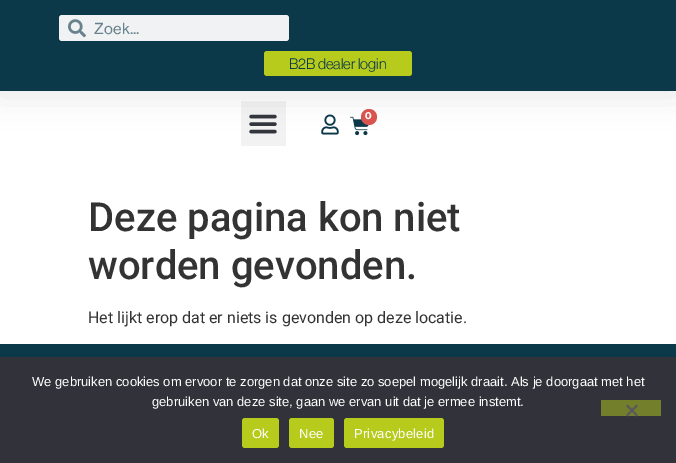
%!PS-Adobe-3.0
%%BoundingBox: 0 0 676 463
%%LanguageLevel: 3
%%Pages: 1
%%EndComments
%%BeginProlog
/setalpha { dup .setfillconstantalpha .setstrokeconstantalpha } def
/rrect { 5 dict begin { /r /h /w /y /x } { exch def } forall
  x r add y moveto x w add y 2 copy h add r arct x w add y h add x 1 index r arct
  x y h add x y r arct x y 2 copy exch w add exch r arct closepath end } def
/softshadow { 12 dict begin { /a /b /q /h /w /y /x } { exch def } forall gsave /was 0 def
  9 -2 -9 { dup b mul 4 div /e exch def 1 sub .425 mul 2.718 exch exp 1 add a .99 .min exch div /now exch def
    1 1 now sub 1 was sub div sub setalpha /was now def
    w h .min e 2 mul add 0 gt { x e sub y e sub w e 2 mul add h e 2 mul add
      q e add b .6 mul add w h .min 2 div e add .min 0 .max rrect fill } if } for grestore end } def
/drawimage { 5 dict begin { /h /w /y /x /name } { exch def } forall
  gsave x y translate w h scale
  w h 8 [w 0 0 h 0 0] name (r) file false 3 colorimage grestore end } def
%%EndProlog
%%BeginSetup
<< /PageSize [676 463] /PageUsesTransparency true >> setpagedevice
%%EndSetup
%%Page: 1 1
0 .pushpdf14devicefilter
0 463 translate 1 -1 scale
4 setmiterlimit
1 setgray
0 0 676 463 rectfill
0 setgray
0 5 676 91 0 15 0.1 softshadow
0.043 0.224 0.29 setrgbcolor
0 0 676 91 rectfill
0.945 0.949 0.953 setrgbcolor
59 15 230 26 3 rrect fill
(images/1.raw) 68 19 18 19 drawimage
0.714 0.796 0.11 setrgbcolor
264 51 148 25 3 rrect fill
0.05 setalpha
0 setgray
241 101 45 45 rectfill
1 setalpha
(images/2.raw) 249 114 28 20 drawimage
(images/3.raw) 321 114 18 21 drawimage
(images/4.raw) 350 116 19 20 drawimage
0.851 0.325 0.31 setrgbcolor
newpath 369 117 8 0 360 arc closepath fill
0.043 0.224 0.29 setrgbcolor
0 344 676 13 rectfill
0.196 0.196 0.227 setrgbcolor
0 357 676 106 rectfill
0.455 0.498 0.169 setrgbcolor
601 400 60 16 rectfill
0.349 0.349 0.365 setrgbcolor
newpath 636.5 404.5 moveto 638 406 lineto 627.5 416.5 lineto 626 415 lineto closepath fill
newpath 626 406 moveto 627.5 404.5 lineto 638 415 lineto 636.5 416.5 lineto closepath fill
0.714 0.796 0.11 setrgbcolor
242 418 37 30 3 rrect fill
289 418 45 30 3 rrect fill
344 418 100 30 3 rrect fill
/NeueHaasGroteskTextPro-Regular [15 0 0 -15 0 0] selectfont
0.404 0.514 0.557 setrgbcolor
94 34 moveto (Zoek...) show
/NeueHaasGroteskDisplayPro-Regular [15 0 0 -15 0 0] selectfont
0.043 0.224 0.29 setrgbcolor
289 69 moveto (B2B dealer login) show
/NeueHaasGroteskDisplayPro-Bold [10 0 0 -10 0 0] selectfont
1 setgray
365 119 moveto (0) show
/Roboto-Medium [40 0 0 -40 0 0] selectfont
0.2 setgray
88 231 moveto (Deze pagina kon niet) show
88 279 moveto (worden gevonden.) show
/Roboto-Regular [16 0 0 -16 0 0] selectfont
88 323 moveto (Het lijkt erop dat er niets is gevonden op deze locatie.) show
/LiberationSans-Regular [13 0 0 -13 0 0] selectfont
1 setgray
32 386 moveto (We gebruiken cookies om ervoor te zorgen dat onze site zo soepel mogelijk draait. Als je doorgaat met het) show
152 406 moveto (gebruiken van deze site, gaan we ervan uit dat je ermee instemt.) show
252 438 moveto 0.25 0 (Ok) ashow
299 438 moveto 0.25 0 (Nee) ashow
354 438 moveto 0.25 0 (Privacybeleid) ashow
.poppdf14devicefilter showpage
%%EOF
